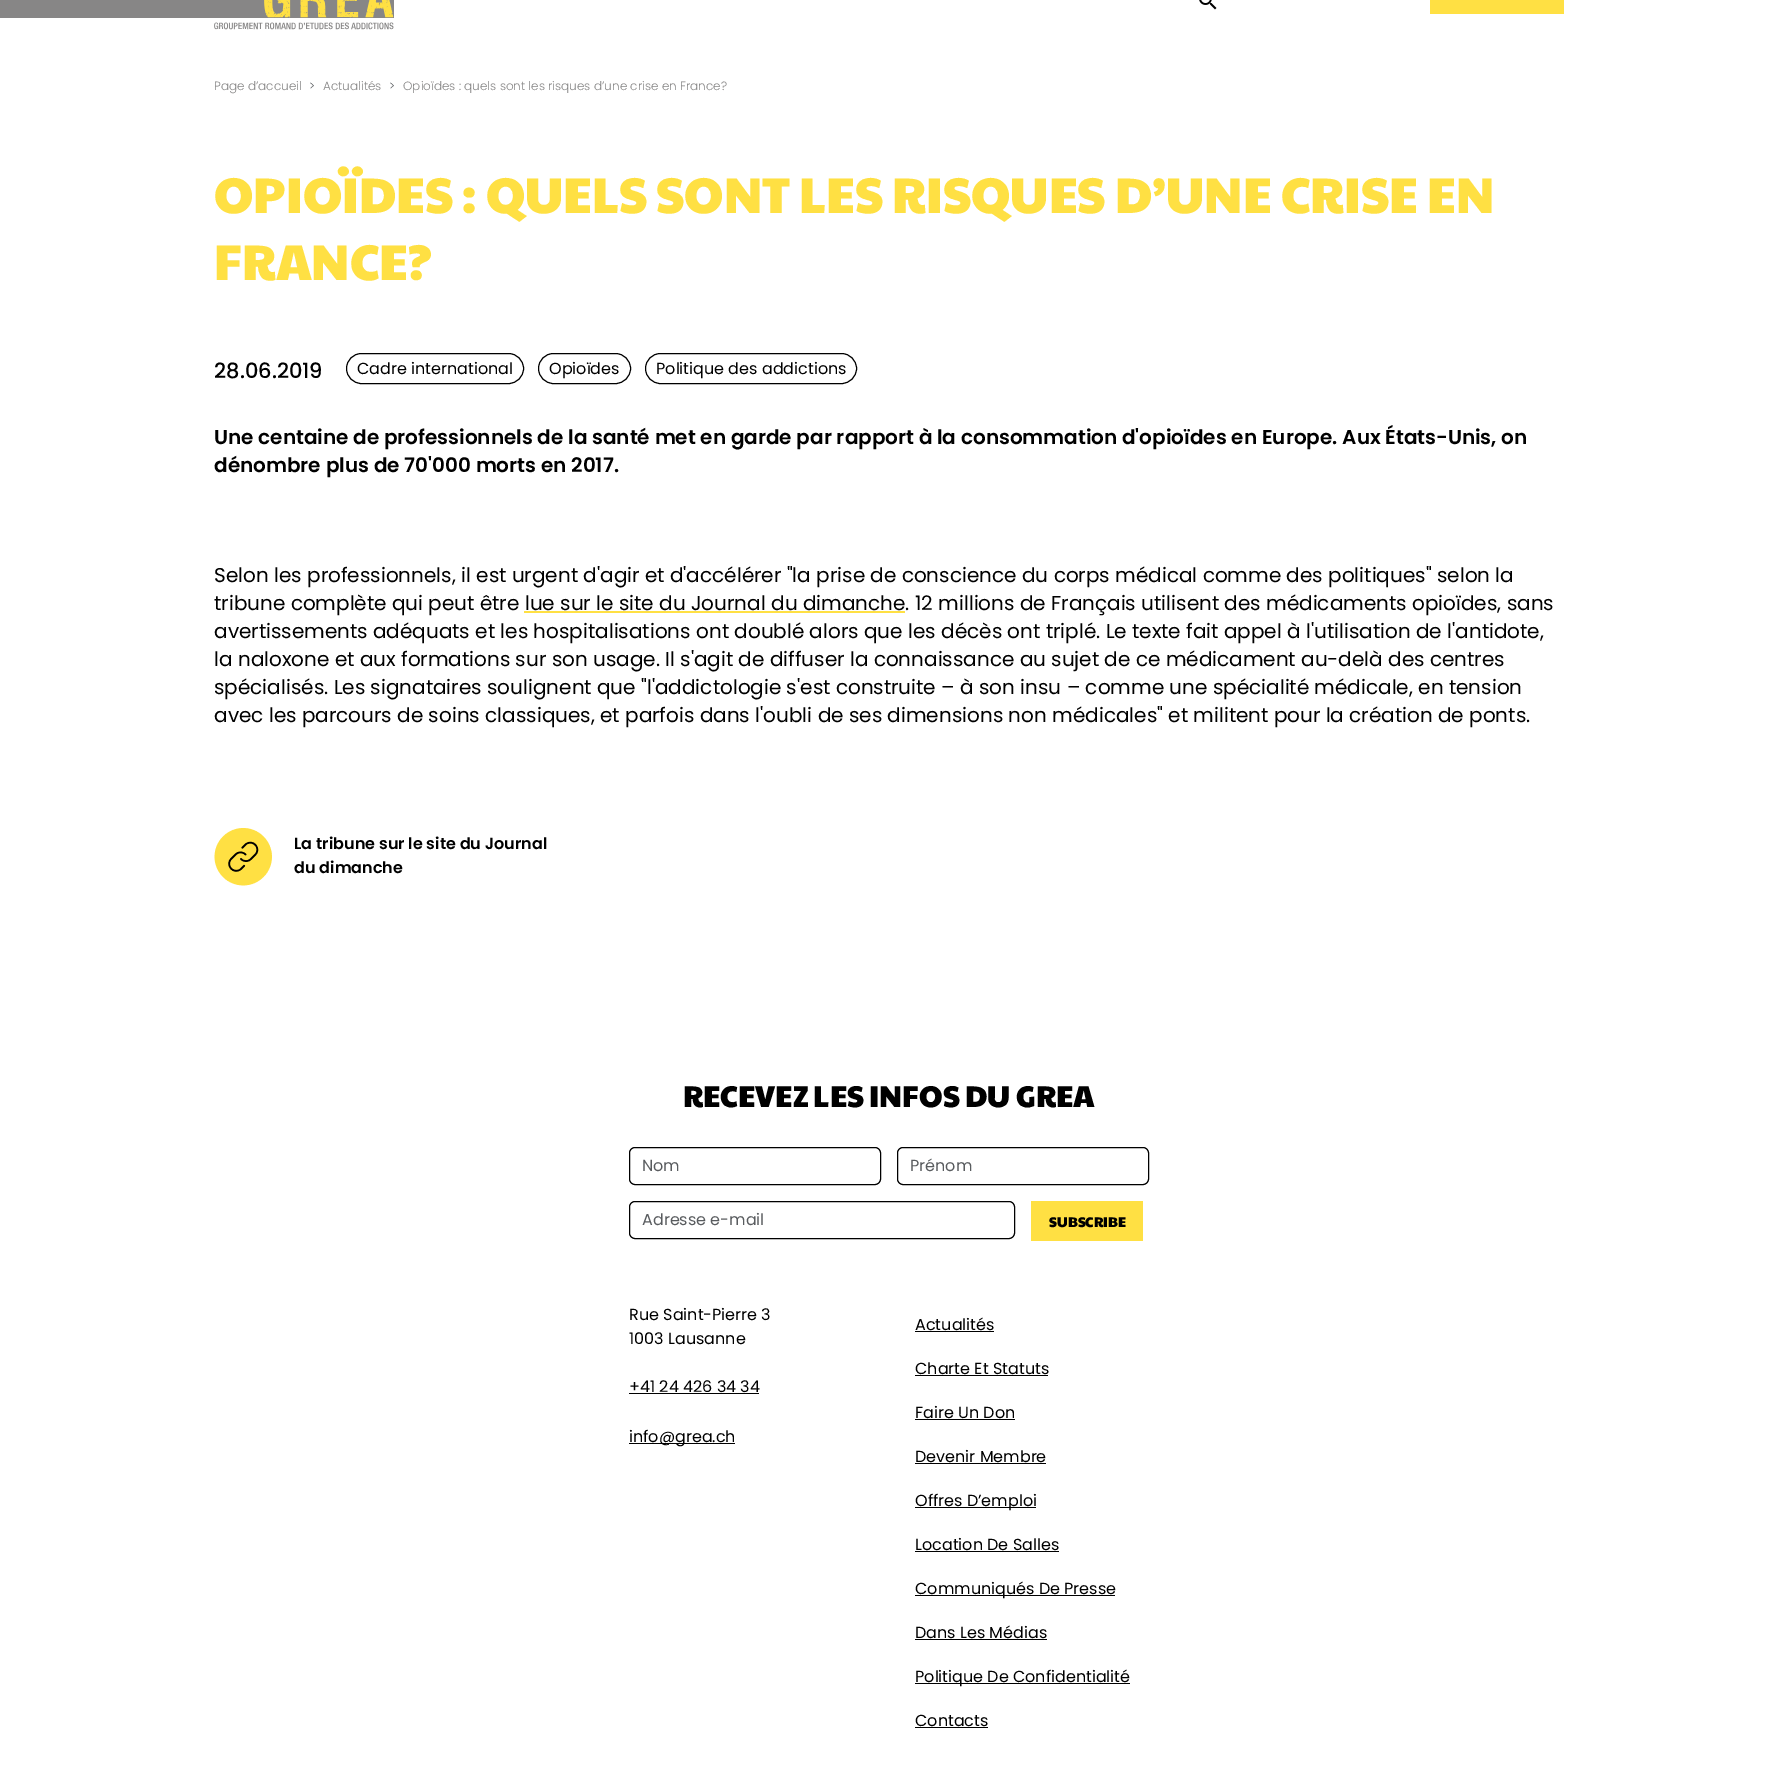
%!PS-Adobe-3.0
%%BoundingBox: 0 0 1777 1786
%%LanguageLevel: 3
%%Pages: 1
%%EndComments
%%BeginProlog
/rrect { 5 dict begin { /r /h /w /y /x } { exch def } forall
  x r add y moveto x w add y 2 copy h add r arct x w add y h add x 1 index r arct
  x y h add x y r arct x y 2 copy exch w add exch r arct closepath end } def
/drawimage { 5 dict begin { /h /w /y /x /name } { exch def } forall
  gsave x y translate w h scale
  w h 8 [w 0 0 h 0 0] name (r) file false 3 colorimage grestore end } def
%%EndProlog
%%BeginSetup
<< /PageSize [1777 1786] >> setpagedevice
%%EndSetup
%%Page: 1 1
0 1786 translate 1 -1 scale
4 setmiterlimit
1 setgray
0 0 1777 1786 rectfill
0.529 0.525 0.525 setrgbcolor
0 0 394 18 rectfill
(images/1.raw) 214 0 180 30 drawimage
(images/2.raw) 1199 0 18 10 drawimage
1 0.878 0.263 setrgbcolor
1430 0 134 14 rectfill
0 setgray
346.5 353.5 177 30 15 rrect stroke
538.5 353.5 92 30 15 rrect stroke
645.5 353.5 211 30 15 rrect stroke
(images/3.raw) 214 828 58 58 drawimage
629.5 1147.5 251 37 5.5 rrect stroke
897.5 1147.5 251 37 5.5 rrect stroke
629.5 1201.5 385 37 5.5 rrect stroke
1 0.878 0.263 setrgbcolor
1031 1201 112 40 rectfill
0 setgray
629 1393 130 1 rectfill
629 1443 106 1 rectfill
915 1331 79 1 rectfill
915 1375 133 1 rectfill
915 1419 100 1 rectfill
915 1463 131 1 rectfill
915 1507 121 1 rectfill
915 1551 144 1 rectfill
915 1595 200 1 rectfill
915 1639 132 1 rectfill
915 1683 215 1 rectfill
915 1727 73 1 rectfill
/Poppins-Light [12 0 0 -12 0 0] selectfont
0.529 0.525 0.525 setrgbcolor
214 90 moveto (Page d’accueil) show
0.349 0.361 0.373 setrgbcolor
309 90 moveto (>) show
0.529 0.525 0.525 setrgbcolor
323 90 moveto (Actualités) show
0.349 0.361 0.373 setrgbcolor
389 90 moveto (>) show
0.529 0.525 0.525 setrgbcolor
403 90 moveto (Opioïdes : quels sont les risques d’une crise en France?) show
/PaytoneOne-Regular [50 0 0 -50 0 0] selectfont
1 0.878 0.263 setrgbcolor
214 213 moveto (OPIOÏDES : QUELS SONT LES RISQUES D’UNE CRISE EN) show
214 280 moveto (FRANCE?) show
/Poppins-Medium [21 0 0 -21 0 0] selectfont
0 setgray
214 378 moveto (28.06.2019) show
/Poppins-Regular [16 0 0 -16 0 0] selectfont
357 374 moveto (Cadre international) show
549 374 moveto (Opioïdes) show
656 374 moveto (Politique des addictions) show
/Poppins-SemiBold [20 0 0 -20 0 0] selectfont
214 444 moveto (Une centaine de professionnels de la santé met en garde par rapport à la consommation d'opioïdes en Europe. Aux États-Unis, on) show
214 472 moveto (dénombre plus de 70'000 morts en 2017.) show
/Poppins-Regular [20 0 0 -20 0 0] selectfont
214 582 moveto (Selon les professionnels, il est urgent d'agir et d'accélérer "la prise de conscience du corps médical comme des politiques" selon la) show
214 610 moveto (tribune complète qui peut être lue sur le site du Journal du dimanche. 12 millions de Français utilisent des médicaments opioïdes, sans) show
1 0.878 0.263 setrgbcolor
524 611 381 2 rectfill
0 setgray
214 638 moveto (avertissements adéquats et les hospitalisations ont doublé alors que les décès ont triplé. Le texte fait appel à l'utilisation de l'antidote,) show
214 666 moveto (la naloxone et aux formations sur son usage. Il s'agit de diffuser la connaissance au sujet de ce médicament au-delà des centres) show
214 694 moveto (spécialisés. Les signataires soulignent que "l'addictologie s'est construite – à son insu – comme une spécialité médicale, en tension) show
214 722 moveto (avec les parcours de soins classiques, et parfois dans l'oubli de ses dimensions non médicales" et militent pour la création de ponts.) show
/Poppins-SemiBold [16 0 0 -16 0 0] selectfont
294 849 moveto (La tribune sur le site du Journal) show
294 873 moveto (du dimanche) show
/PaytoneOne-Regular [30 0 0 -30 0 0] selectfont
683 1107 moveto (RECEVEZ LES INFOS DU GREA) show
/Poppins-Regular [16 0 0 -16 0 0] selectfont
0.349 0.361 0.373 setrgbcolor
642 1171 moveto (Nom) show
910 1171 moveto (Prénom) show
642 1225 moveto (Adresse e-mail) show
/PaytoneOne-Regular [14 0 0 -14 0 0] selectfont
0 setgray
1049 1227 moveto (SUBSCRIBE) show
/Poppins-Regular [16 0 0 -16 0 0] selectfont
629 1320 moveto (Rue Saint-Pierre 3) show
629 1344 moveto (1003 Lausanne) show
629 1392 moveto (+41 24 426 34 34) show
629 1442 moveto (info@grea.ch) show
915 1330 moveto (Actualités) show
915 1374 moveto (Charte Et Statuts) show
915 1418 moveto (Faire Un Don) show
915 1462 moveto (Devenir Membre) show
915 1506 moveto (Offres D’emploi) show
915 1550 moveto (Location De Salles) show
915 1594 moveto (Communiqués De Presse) show
915 1638 moveto (Dans Les Médias) show
915 1682 moveto (Politique De Confidentialité) show
915 1726 moveto (Contacts) show
showpage
%%EOF
